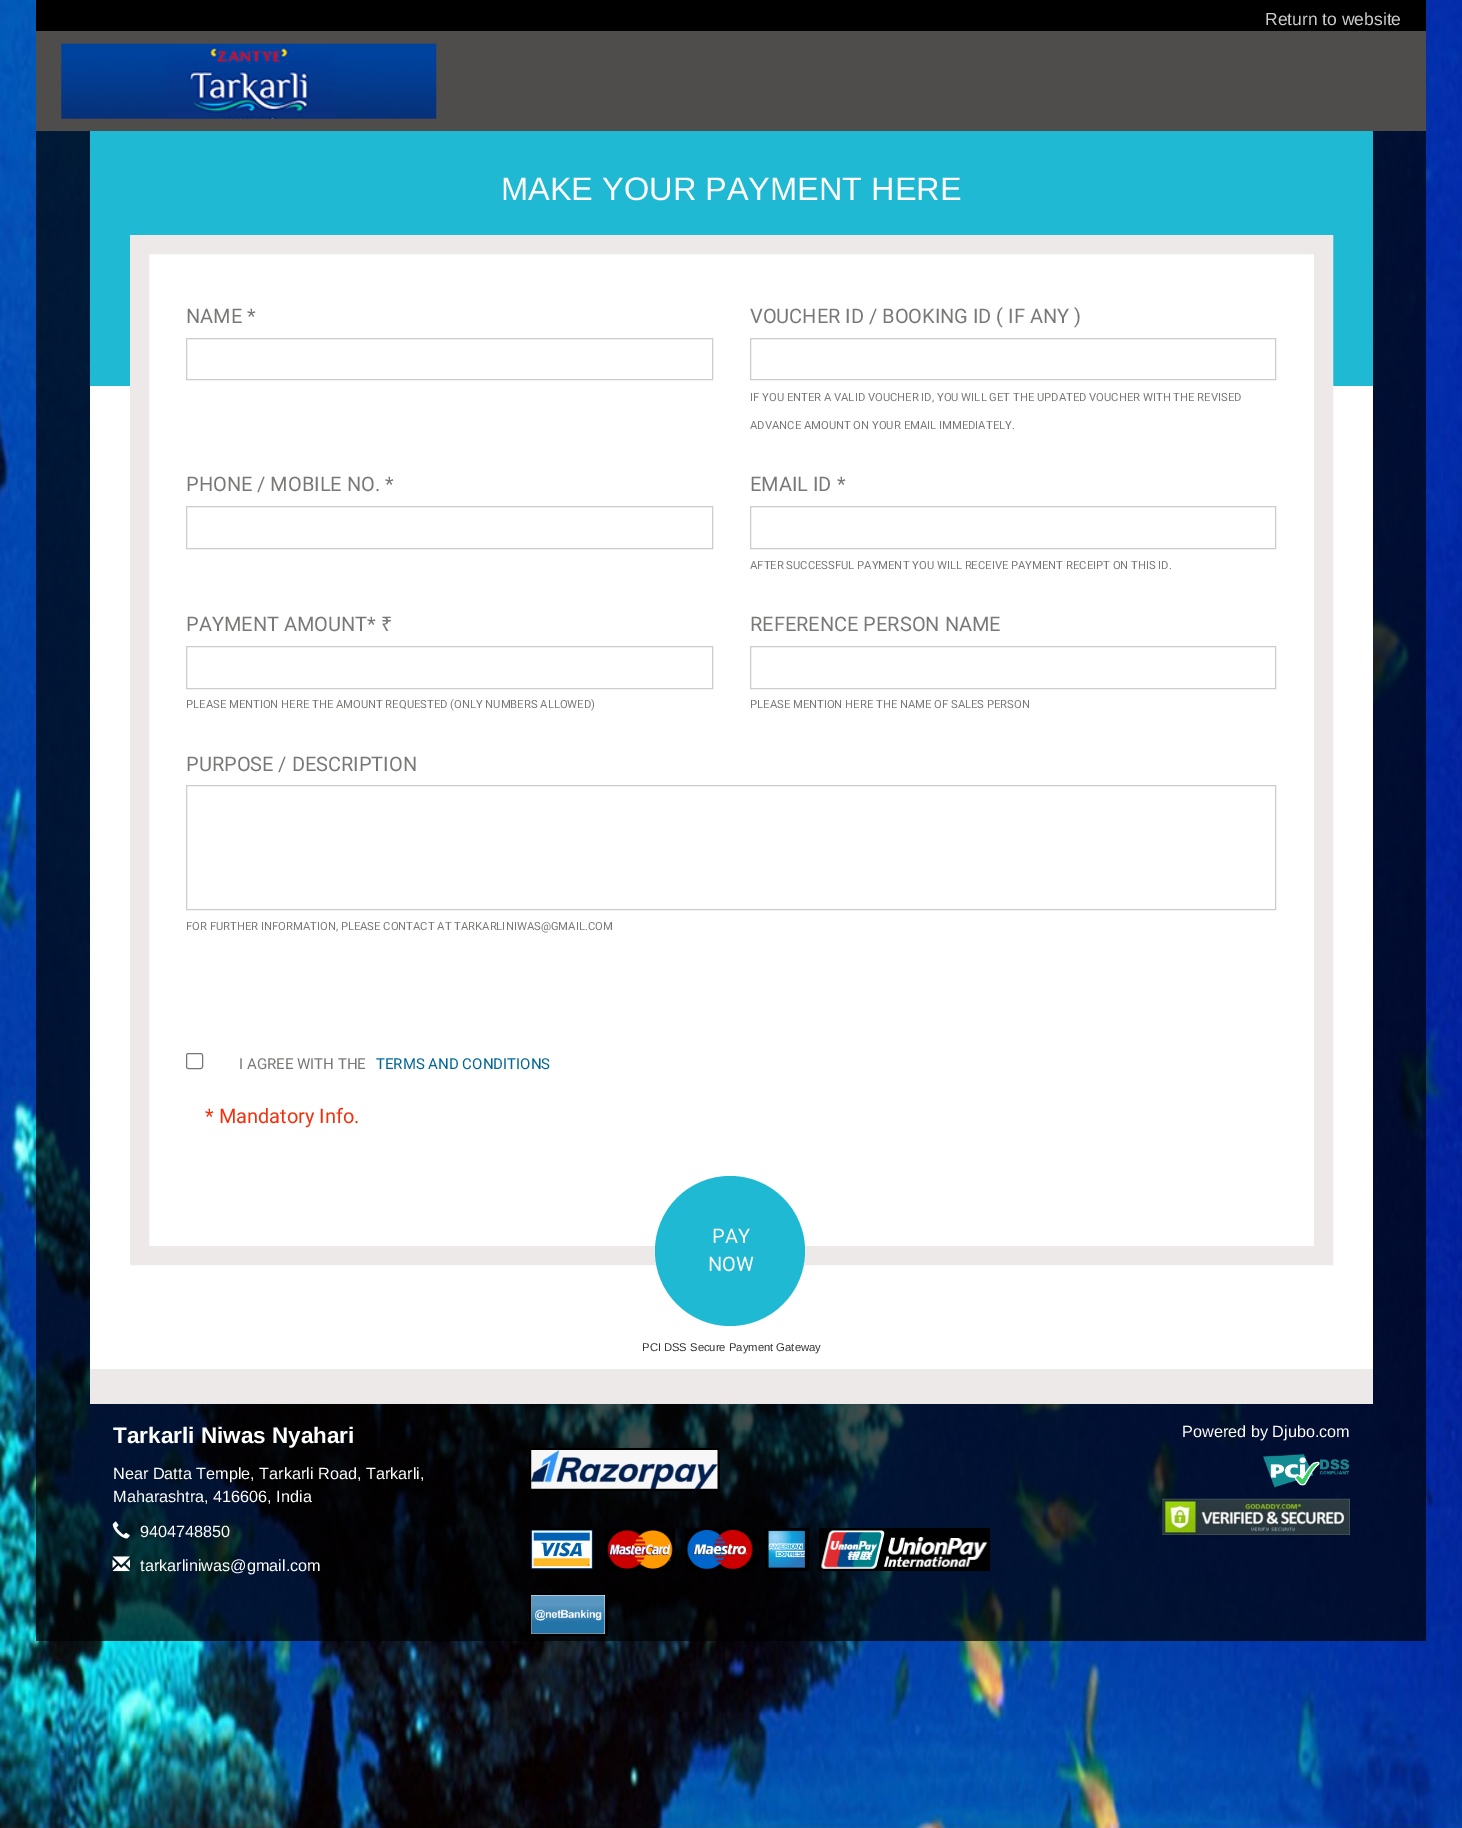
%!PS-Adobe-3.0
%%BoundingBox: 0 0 1462 1828
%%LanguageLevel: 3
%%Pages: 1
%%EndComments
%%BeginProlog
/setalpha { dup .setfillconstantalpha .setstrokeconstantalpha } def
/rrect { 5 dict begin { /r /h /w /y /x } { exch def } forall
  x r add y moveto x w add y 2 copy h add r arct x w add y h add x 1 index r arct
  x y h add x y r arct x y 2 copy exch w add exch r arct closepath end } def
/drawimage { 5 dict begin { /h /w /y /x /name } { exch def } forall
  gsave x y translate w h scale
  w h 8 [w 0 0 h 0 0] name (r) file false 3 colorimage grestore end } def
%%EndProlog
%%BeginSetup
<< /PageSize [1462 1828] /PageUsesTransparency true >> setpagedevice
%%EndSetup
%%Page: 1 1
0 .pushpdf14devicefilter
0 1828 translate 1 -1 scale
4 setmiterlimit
1 setgray
0 0 1462 1828 rectfill
(images/1.raw) 0 0 1462 1828 drawimage
0.7 setalpha
0 setgray
36 131 1390 1510 rectfill
1 setalpha
36 0 1390 31 rectfill
0.31 0.298 0.298 setrgbcolor
36 31 1390 100 rectfill
(images/2.raw) 61 43 376 76 drawimage
1 setgray
90 386 1283 983 rectfill
0.122 0.725 0.831 setrgbcolor
90 131 1283 255 rectfill
1 setgray
149 254 1165 132 rectfill
0.929 0.914 0.91 setrgbcolor
19 setlinewidth
139.5 244.5 1184 1011 rectstroke
0.8 setgray
1 setlinewidth
186.5 338.5 526 41 rectstroke
750.5 338.5 525 41 rectstroke
186.5 506.5 526 42 rectstroke
750.5 506.5 525 42 rectstroke
186.5 646.5 526 42 rectstroke
750.5 646.5 525 42 rectstroke
186.5 785.5 1089 124 rectstroke
0.463 setgray
186.5 1053.5 16 15 2 rrect stroke
0.122 0.725 0.831 setrgbcolor
newpath 730 1251 75 0 360 arc closepath fill
0.929 0.914 0.91 setrgbcolor
90 1369 1283 35 rectfill
(images/3.raw) 112 1521 18 18 drawimage
(images/4.raw) 112 1556 18 16 drawimage
0 setgray
529 1448 191 43 rectfill
(images/5.raw) 531 1450 187 39 drawimage
529 1528 66 43 rectfill
(images/6.raw) 531 1530 62 39 drawimage
605 1528 70 43 rectfill
(images/7.raw) 607 1530 66 39 drawimage
685 1528 70 43 rectfill
(images/8.raw) 687 1530 66 39 drawimage
765 1528 44 43 rectfill
(images/9.raw) 768 1530 38 38 drawimage
819 1528 171 43 rectfill
(images/10.raw) 821 1530 167 39 drawimage
529 1593 79 43 rectfill
(images/11.raw) 531 1595 74 39 drawimage
(images/12.raw) 1263 1454 87 34 drawimage
(images/13.raw) 1162 1498 188 37 drawimage
/LiberationSans-Regular [17.5 0 0 -17.5 0 0] selectfont
0.8 setgray
1265 25 moveto (Return to website) show
/LiberationSans-Regular [32.5 0 0 -32.5 0 0] selectfont
1 setgray
501 200 moveto (MAKE YOUR PAYMENT HERE) show
/Roboto-Regular [20 0 0 -20 0 0] selectfont
0.475 0.471 0.467 setrgbcolor
186 323 moveto (NAME *) show
750 323 moveto (VOUCHER ID / BOOKING ID \( IF ANY \)) show
/Roboto-Regular [11.25 0 0 -11.25 0 0] selectfont
750 401 moveto (IF YOU ENTER A VALID VOUCHER ID, YOU WILL GET THE UPDATED VOUCHER WITH THE REVISED) show
750 429 moveto (ADVANCE AMOUNT ON YOUR EMAIL IMMEDIATELY.) show
/Roboto-Regular [20 0 0 -20 0 0] selectfont
186 491 moveto (PHONE / MOBILE NO. *) show
750 491 moveto (EMAIL ID *) show
/Roboto-Regular [11.25 0 0 -11.25 0 0] selectfont
750 569 moveto (AFTER SUCCESSFUL PAYMENT YOU WILL RECEIVE PAYMENT RECEIPT ON THIS ID.) show
/Roboto-Regular [20 0 0 -20 0 0] selectfont
186 631 moveto (PAYMENT AMOUNT*) show
/NotoSans-Regular [20 0 0 -20 0 0] selectfont
381 631 moveto (₹) show
/Roboto-Regular [11.25 0 0 -11.25 0 0] selectfont
186 708 moveto (PLEASE MENTION HERE THE AMOUNT REQUESTED \(ONLY NUMBERS ALLOWED\)) show
/Roboto-Regular [20 0 0 -20 0 0] selectfont
750 631 moveto (REFERENCE PERSON NAME) show
/Roboto-Regular [11.25 0 0 -11.25 0 0] selectfont
750 708 moveto (PLEASE MENTION HERE THE NAME OF SALES PERSON) show
/Roboto-Regular [20 0 0 -20 0 0] selectfont
186 771 moveto (PURPOSE / DESCRIPTION) show
/Roboto-Regular [11.25 0 0 -11.25 0 0] selectfont
186 930 moveto (FOR FURTHER INFORMATION, PLEASE CONTACT AT TARKARLINIWAS@GMAIL.COM) show
/Roboto-Regular [15 0 0 -15 0 0] selectfont
239 1069 moveto (I AGREE WITH THE) show
0 0.4 0.6 setrgbcolor
376 1069 moveto (TERMS AND CONDITIONS) show
/Roboto-Regular [20 0 0 -20 0 0] selectfont
0.949 0.188 0.051 setrgbcolor
205 1123 moveto (* Mandatory Info.) show
1 setgray
712 1243 moveto (PAY) show
708 1271 moveto (NOW) show
/LiberationSans-Regular [11.25 0 0 -11.25 0 0] selectfont
0.2 setgray
642 1351 moveto (PCI DSS Secure Payment Gateway) show
/LiberationSans-Bold [22.5 0 0 -22.5 0 0] selectfont
1 setgray
113 1443 moveto (Tarkarli Niwas Nyahari) show
/LiberationSans-Regular [16.25 0 0 -16.25 0 0] selectfont
113 1479 moveto (Near Datta Temple, Tarkarli Road, Tarkarli,) show
113 1502 moveto (Maharashtra, 416606, India) show
140 1537 moveto (9404748850) show
140 1571 moveto (tarkarliniwas@gmail.com) show
1182 1437 moveto (Powered by Djubo.com) show
.poppdf14devicefilter showpage
%%EOF
